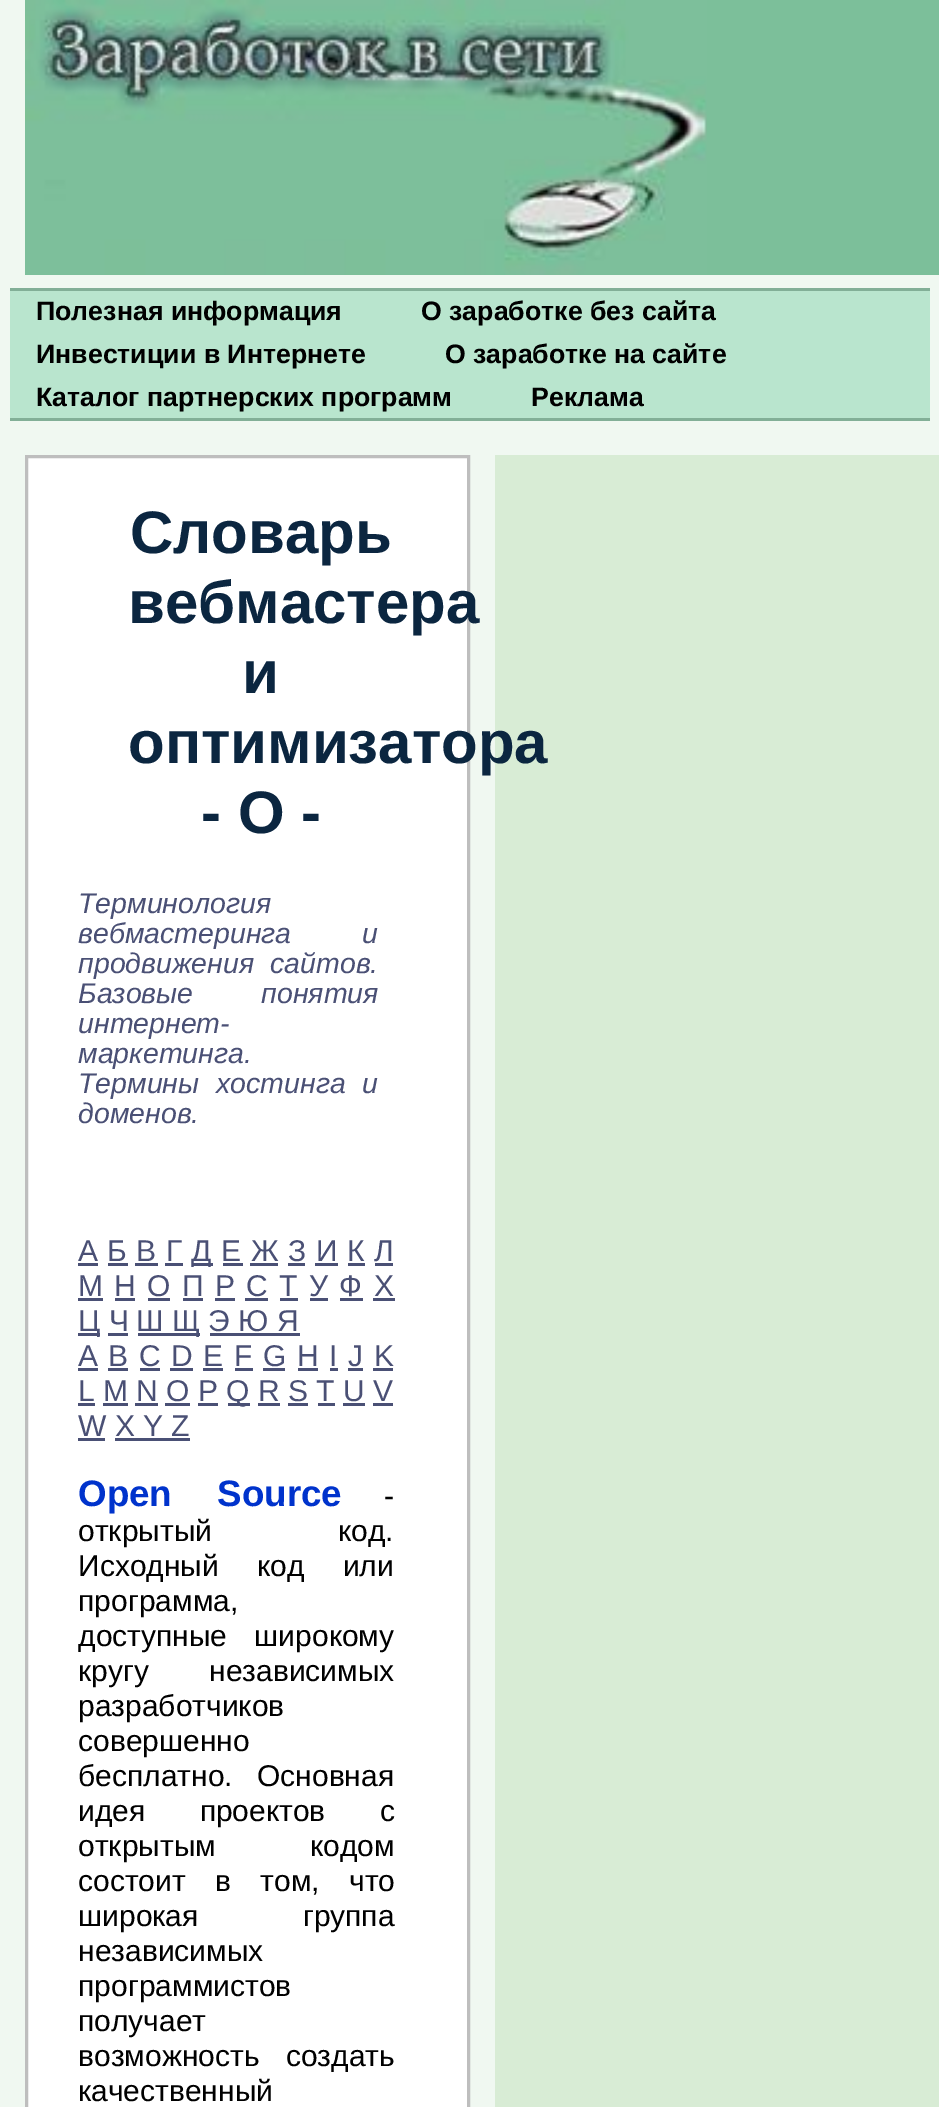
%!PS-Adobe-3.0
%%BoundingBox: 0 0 939 2107
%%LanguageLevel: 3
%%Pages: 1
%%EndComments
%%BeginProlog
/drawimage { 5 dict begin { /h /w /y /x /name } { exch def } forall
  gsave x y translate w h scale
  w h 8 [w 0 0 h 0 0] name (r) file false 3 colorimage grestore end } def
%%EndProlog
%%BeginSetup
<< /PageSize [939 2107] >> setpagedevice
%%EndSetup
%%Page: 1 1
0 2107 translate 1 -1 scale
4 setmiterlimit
0.941 0.973 0.945 setrgbcolor
0 0 939 2107 rectfill
0.486 0.749 0.604 setrgbcolor
707 0 232 275 rectfill
(images/1.raw) 25 0 682 275 drawimage
0.725 0.898 0.808 setrgbcolor
10 291 920 127 rectfill
0.51 0.686 0.592 setrgbcolor
10 288 920 3 rectfill
10 418 920 3 rectfill
0.847 0.925 0.835 setrgbcolor
495 455 444 1652 rectfill
1 setgray
newpath 26.5 456.5 moveto 468.5 456.5 lineto 468.5 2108.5 lineto 26.5 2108.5 lineto closepath gsave fill grestore
0.745 setgray
3 setlinewidth
stroke
0.29 0.314 0.459 setrgbcolor
78 1263 20 3 rectfill
108 1263 20 3 rectfill
135 1263 23 3 rectfill
165 1263 18 3 rectfill
193 1263 20 3 rectfill
223 1263 20 3 rectfill
250 1263 28 3 rectfill
288 1263 17 3 rectfill
315 1263 23 3 rectfill
348 1263 17 3 rectfill
375 1263 18 3 rectfill
78 1298 25 3 rectfill
115 1298 20 3 rectfill
148 1298 22 3 rectfill
183 1298 20 3 rectfill
215 1298 20 3 rectfill
245 1298 23 3 rectfill
280 1298 18 3 rectfill
310 1298 18 3 rectfill
340 1298 23 3 rectfill
373 1298 22 3 rectfill
78 1333 22 3 rectfill
138 1333 62 3 rectfill
108 1333 20 3 rectfill
210 1333 90 3 rectfill
78 1368 20 3 rectfill
108 1368 20 3 rectfill
140 1368 20 3 rectfill
170 1368 23 3 rectfill
203 1368 20 3 rectfill
235 1368 18 3 rectfill
263 1368 22 3 rectfill
298 1368 20 3 rectfill
330 1368 8 3 rectfill
348 1368 15 3 rectfill
373 1368 20 3 rectfill
78 1403 17 3 rectfill
228 1403 22 3 rectfill
103 1403 25 3 rectfill
135 1403 23 3 rectfill
165 1403 25 3 rectfill
198 1403 20 3 rectfill
258 1403 22 3 rectfill
288 1403 20 3 rectfill
318 1403 17 3 rectfill
343 1403 22 3 rectfill
373 1403 20 3 rectfill
78 1438 27 3 rectfill
115 1438 75 3 rectfill
/LiberationSans-Bold [26.7 0 0 -26.7 0 0] selectfont
0 setgray
36 320 moveto (Полезная информация) show
421 320 moveto (О заработке без сайта) show
36 363 moveto (Инвестиции в Интернете) show
445 363 moveto (О заработке на сайте) show
36 406 moveto (Каталог партнерских программ) show
531 406 moveto (Реклама) show
/LiberationSans-Bold [60 0 0 -60 0 0] selectfont
0.043 0.149 0.251 setrgbcolor
130 553 moveto (Словарь) show
128 623 moveto (вебмастера) show
242 693 moveto (и) show
128 763 moveto (оптимизатора) show
201 833 moveto (- O -) show
/LiberationSans-Italic [28.5 0 0 -28.5 0 0] selectfont
0.29 0.314 0.459 setrgbcolor
78 913 moveto (Терминология) show
78 943 moveto 63 0 32 (вебмастеринга и) widthshow
78 973 moveto 8 0 32 (продвижения сайтов.) widthshow
78 1003 moveto 60 0 32 (Базовые понятия) widthshow
78 1033 moveto (интернет-) show
78 1063 moveto (маркетинга.) show
78 1093 moveto 9 0 32 (Термины хостинга и) widthshow
78 1123 moveto (доменов.) show
/LiberationSans-Regular [30 0 0 -30 0 0] selectfont
78 1261 moveto (А) show
107 1261 moveto (Б) show
136 1261 moveto (В) show
166 1261 moveto (Г) show
191 1261 moveto (Д) show
221 1261 moveto (Е) show
251 1261 moveto (Ж) show
288 1261 moveto (З) show
316 1261 moveto (И) show
347 1261 moveto (К) show
374 1261 moveto (Л) show
78 1296 moveto (М) show
114 1296 moveto (Н) show
147 1296 moveto (О) show
182 1296 moveto (П) show
215 1296 moveto (Р) show
246 1296 moveto (С) show
279 1296 moveto (Т) show
309 1296 moveto (У) show
339 1296 moveto (Ф) show
374 1296 moveto (Х) show
78 1331 moveto (Ц Ч) show
136 1331 moveto (Ш Щ Э Ю Я) show
78 1366 moveto (A) show
108 1366 moveto (B) show
139 1366 moveto (C) show
171 1366 moveto (D) show
203 1366 moveto (E) show
234 1366 moveto (F) show
263 1366 moveto (G) show
297 1366 moveto (H) show
329 1366 moveto (I) show
348 1366 moveto (J) show
374 1366 moveto (K) show
78 1401 moveto (L M N O P) show
226 1401 moveto (Q R S T U V) show
78 1436 moveto (W X Y Z) show
/LiberationSans-Bold [36.75 0 0 -36.75 0 0] selectfont
0 0.2 0.8 setrgbcolor
78 1506 moveto 35 0 32 (Open Source) widthshow
/LiberationSans-Regular [30 0 0 -30 0 0] selectfont
0 setgray
384 1506 moveto (-) show
78 1541 moveto 118 0 32 (открытый код.) widthshow
78 1576 moveto 30 0 32 (Исходный код или) widthshow
78 1611 moveto (программа,) show
78 1646 moveto 19 0 32 (доступные широкому) widthshow
78 1681 moveto 52 0 32 (кругу независимых) widthshow
78 1716 moveto (разработчиков) show
78 1751 moveto (совершенно) show
78 1786 moveto 16 0 32 (бесплатно. Основная) widthshow
78 1821 moveto 46 0 32 (идея проектов с) widthshow
78 1856 moveto 86 0 32 (открытым кодом) widthshow
78 1891 moveto 21 0 32 (состоит в том, что) widthshow
78 1926 moveto 96 0 32 (широкая группа) widthshow
78 1961 moveto (независимых) show
78 1996 moveto (программистов) show
78 2031 moveto (получает) show
78 2066 moveto 18 0 32 (возможность создать) widthshow
78 2101 moveto (качественный) show
showpage
%%EOF
